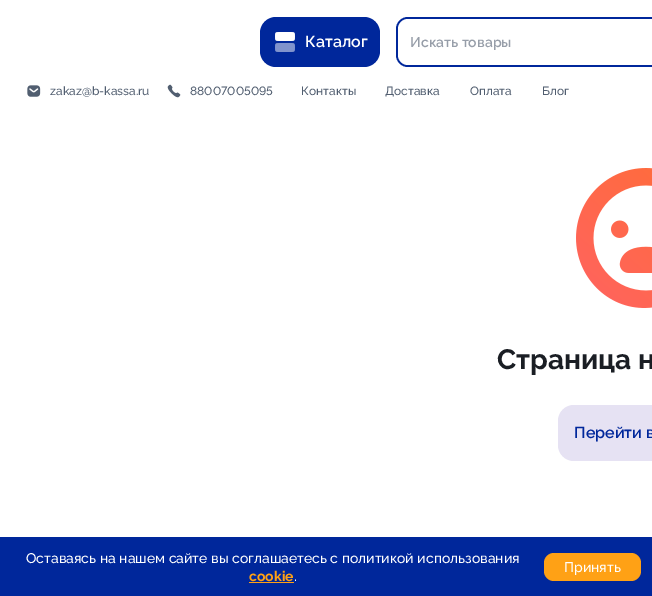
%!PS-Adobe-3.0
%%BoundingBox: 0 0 652 596
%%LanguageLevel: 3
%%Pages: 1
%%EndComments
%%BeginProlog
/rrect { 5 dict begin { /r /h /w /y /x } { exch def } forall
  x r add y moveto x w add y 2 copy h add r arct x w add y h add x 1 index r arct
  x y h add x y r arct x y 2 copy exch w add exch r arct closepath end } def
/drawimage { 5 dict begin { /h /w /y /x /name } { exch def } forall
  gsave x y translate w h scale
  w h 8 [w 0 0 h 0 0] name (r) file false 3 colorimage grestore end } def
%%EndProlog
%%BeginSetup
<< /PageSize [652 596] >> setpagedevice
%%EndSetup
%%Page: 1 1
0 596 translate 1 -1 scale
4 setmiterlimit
1 setgray
0 0 652 596 rectfill
0 0.153 0.608 setrgbcolor
260 17 120 50 16 rrect fill
(images/1.raw) 275 32 20 20 drawimage
396 17 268 50 12 rrect fill
1 setgray
398 19 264 46 10 rrect fill
(images/2.raw) 27 85 14 12 drawimage
(images/3.raw) 167 84 14 14 drawimage
(images/4.raw) 576 168 76 140 drawimage
0.902 0.886 0.953 setrgbcolor
558 405 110 56 16 rrect fill
0 0.153 0.608 setrgbcolor
0 537 652 59 rectfill
1 0.631 0.082 setrgbcolor
249 582 45 1 rectfill
544 553 97 28 10 rrect fill
/Raleway-SemiBold [16 0 0 -16 0 0] selectfont
1 setgray
305 47 moveto (Каталог) show
/Raleway-SemiBold [14 0 0 -14 0 0] selectfont
0.592 0.62 0.663 setrgbcolor
410 47 moveto (Искать товары) show
/Raleway-Medium [12 0 0 -12 0 0] selectfont
0.318 0.369 0.439 setrgbcolor
50 95 moveto (zakaz@b-kassa.ru) show
/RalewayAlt-Medium [12 0 0 -12 0 0] selectfont
190 95 moveto (88007005095) show
/Raleway-Medium [12 0 0 -12 0 0] selectfont
301 95 moveto (Контакты) show
385 95 moveto (Доставка) show
470 95 moveto (Оплата) show
542 95 moveto (Блог) show
/Raleway-Bold [28 0 0 -28 0 0] selectfont
0.102 0.118 0.141 setrgbcolor
497 369 moveto (Страница н) show
/Raleway-SemiBold [16 0 0 -16 0 0] selectfont
0 0.153 0.608 setrgbcolor
574 438 moveto (Перейти в) show
/Raleway-Medium [14 0 0 -14 0 0] selectfont
1 setgray
26 563 moveto (Оставаясь на нашем сайте вы соглашаетесь с политикой использования) show
/Raleway-Bold [14 0 0 -14 0 0] selectfont
1 0.631 0.082 setrgbcolor
249 581 moveto (cookie) show
/Raleway-Medium [14 0 0 -14 0 0] selectfont
1 setgray
294 581 moveto (.) show
564 572 moveto (Принять) show
showpage
%%EOF
